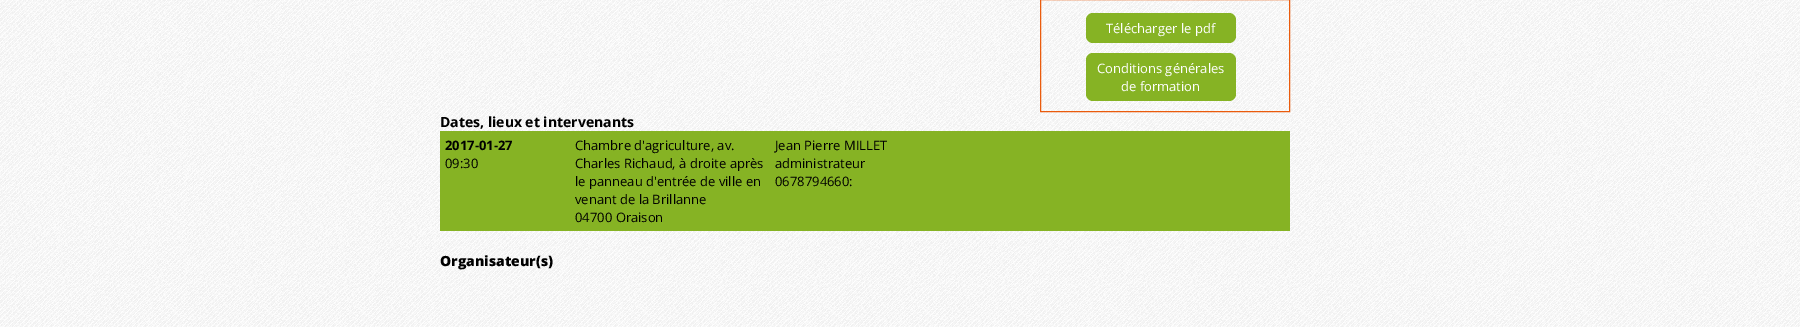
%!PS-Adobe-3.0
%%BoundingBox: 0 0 1800 327
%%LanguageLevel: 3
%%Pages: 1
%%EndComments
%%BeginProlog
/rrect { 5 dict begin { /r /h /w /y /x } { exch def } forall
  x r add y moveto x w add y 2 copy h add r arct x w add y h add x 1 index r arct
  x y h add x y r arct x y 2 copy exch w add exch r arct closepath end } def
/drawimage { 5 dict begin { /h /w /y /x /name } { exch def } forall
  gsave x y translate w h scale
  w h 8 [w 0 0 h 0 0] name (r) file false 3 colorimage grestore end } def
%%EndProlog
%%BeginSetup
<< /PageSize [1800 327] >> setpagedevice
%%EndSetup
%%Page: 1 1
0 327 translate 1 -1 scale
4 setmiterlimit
1 setgray
0 0 1800 327 rectfill
(images/1.raw) 0 0 1800 327 drawimage
0.918 0.357 0.047 setrgbcolor
1040.5 -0.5 249 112 rectstroke
0.525 0.702 0.141 setrgbcolor
1086 13 150 30 7 rrect fill
1086 53 150 48 7 rrect fill
440 131 850 100 rectfill
/OpenSans-Regular [13 0 0 -13 0 0] selectfont
1 setgray
1106 33 moveto (Télécharger le pdf) show
1097 73 moveto (Conditions générales) show
1121 91 moveto (de formation) show
/OpenSans-Bold [14 0 0 -14 0 0] selectfont
0 setgray
440 127 moveto (Dates, lieux et intervenants) show
/OpenSans-Bold [13 0 0 -13 0 0] selectfont
445 150 moveto (2017-01-27) show
/OpenSans-Regular [13 0 0 -13 0 0] selectfont
445 168 moveto (09:30) show
575 150 moveto (Chambre d'agriculture, av.) show
575 168 moveto (Charles Richaud, à droite après) show
575 186 moveto (le panneau d'entrée de ville en) show
575 204 moveto (venant de la Brillanne) show
575 222 moveto (04700 Oraison) show
775 150 moveto (Jean Pierre MILLET) show
775 168 moveto (administrateur) show
775 186 moveto (0678794660:) show
/OpenSans-ExtraBold [14 0 0 -14 0 0] selectfont
440 266 moveto (Organisateur\(s\)) show
showpage
%%EOF
